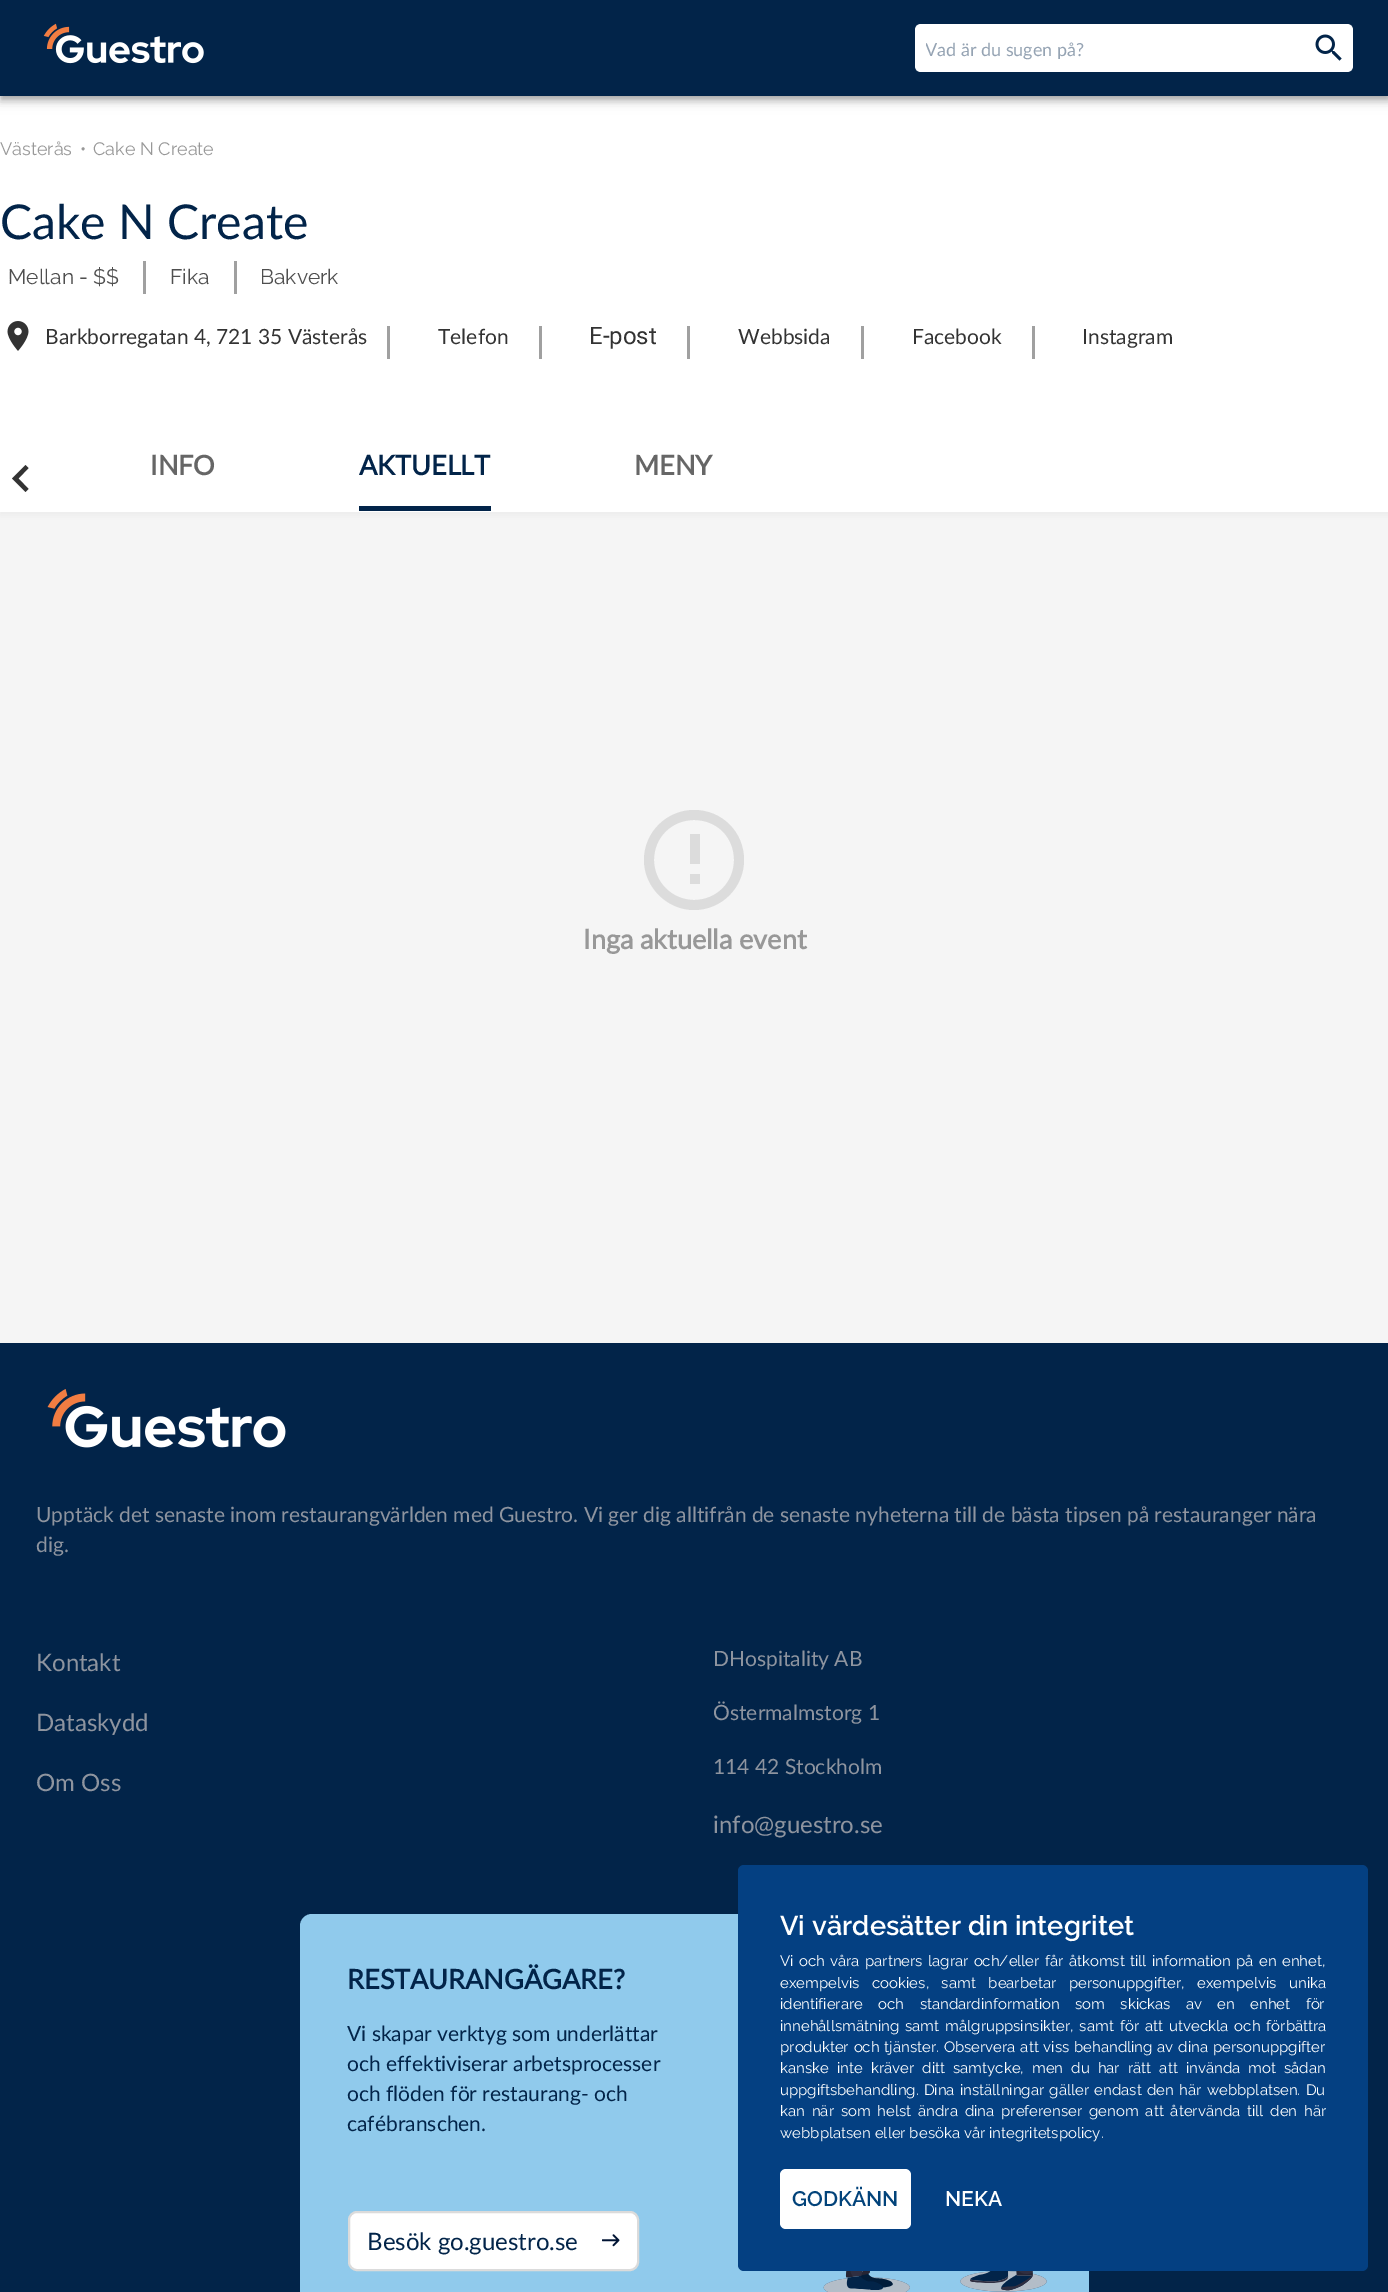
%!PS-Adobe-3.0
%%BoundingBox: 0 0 1388 2292
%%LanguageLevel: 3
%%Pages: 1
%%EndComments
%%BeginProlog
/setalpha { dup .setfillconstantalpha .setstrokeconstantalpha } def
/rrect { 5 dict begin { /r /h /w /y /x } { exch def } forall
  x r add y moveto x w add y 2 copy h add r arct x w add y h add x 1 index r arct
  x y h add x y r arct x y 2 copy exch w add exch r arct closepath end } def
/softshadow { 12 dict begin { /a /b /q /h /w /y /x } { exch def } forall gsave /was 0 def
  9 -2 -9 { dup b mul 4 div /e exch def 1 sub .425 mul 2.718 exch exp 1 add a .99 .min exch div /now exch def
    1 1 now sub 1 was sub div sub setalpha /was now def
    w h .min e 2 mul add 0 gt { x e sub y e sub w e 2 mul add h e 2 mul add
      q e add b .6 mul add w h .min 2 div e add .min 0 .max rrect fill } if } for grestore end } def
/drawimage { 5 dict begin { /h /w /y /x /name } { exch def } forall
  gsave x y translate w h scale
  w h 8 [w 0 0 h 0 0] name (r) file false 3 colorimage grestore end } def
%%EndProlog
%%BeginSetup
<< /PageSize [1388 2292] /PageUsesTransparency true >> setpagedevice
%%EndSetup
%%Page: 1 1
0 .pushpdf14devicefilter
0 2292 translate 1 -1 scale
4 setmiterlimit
0.961 setgray
0 0 1388 2292 rectfill
0.533 setgray
0 99 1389 416 0 4 0.1 softshadow
1 setgray
0 96 1388 416 rectfill
0 setgray
0 2 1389 96 0 7.5 0.12 softshadow
0 6 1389 96 0 4 0.14 softshadow
2 5 1386 93 0 3 0.2 softshadow
0.008 0.141 0.286 setrgbcolor
0 0 1388 96 rectfill
(images/1.raw) 43 23 161 41 drawimage
1 setgray
newpath 921 24 moveto 1305 24 lineto 1305 72 lineto 921 72 lineto 917.5 72 915 69.5 915 66 curveto 915 30 lineto 915 26.5 917.5 24 921 24 curveto closepath fill
newpath 1305 24 moveto 1347 24 lineto 1350.5 24 1353 26.5 1353 30 curveto 1353 66 lineto 1353 69.5 1350.5 72 1347 72 curveto 1305 72 lineto closepath fill
(images/2.raw) 1315 34 27 27 drawimage
0.627 setgray
143 261 3 33 rectfill
234 261 3 33 rectfill
(images/3.raw) 7 321 22 30 drawimage
387 326 3 33 rectfill
539 326 3 33 rectfill
687 326 3 33 rectfill
861 326 3 33 rectfill
1032 326 3 33 rectfill
0.2 setgray
newpath 28.5 489 moveto 18.5 478.5 lineto 28.5 468 lineto 25.5 465 lineto 12 478.5 lineto 25.5 492 lineto closepath fill
0.008 0.141 0.286 setrgbcolor
359 506 132 5 rectfill
0.863 setgray
newpath 690 874 moveto 700 874 lineto 700 884 lineto 690 884 lineto closepath 690 834 moveto 700 834 lineto 700 864 lineto 690 864 lineto closepath 694 810 moveto 667 810 644 832 644 860 curveto 644 887 667 910 694 910 curveto 722 910 744 887 744 860 curveto 744 832 722 810 694 810 curveto closepath 694 900 moveto 672 900 654 882 654 860 curveto 654 837 672 820 694 820 curveto 717 820 734 837 734 860 curveto 734 882 717 900 694 900 curveto closepath fill
0.008 0.141 0.286 setrgbcolor
0 1343 1388 949 rectfill
(images/4.raw) 47 1389 239 59 drawimage
0.565 0.792 0.925 setrgbcolor
300 1914 789 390 12 rrect fill
1 setgray
349 2212 289 58 8 rrect gsave fill grestore
0.859 setgray
2 setlinewidth
stroke
(images/5.raw) 602 2234 18 13 drawimage
(images/6.raw) 823 2271 224 21 drawimage
0.016 0.251 0.51 setrgbcolor
738 1865 630 406 6 rrect fill
1 setgray
780 2169 131 60 6 rrect fill
gsave
926 39 159 23 rectclip
/Lato-Regular [18 0 0 -18 0 0] selectfont
0.584 0.639 0.702 setrgbcolor
925 56 moveto (Vad är du sugen på?) show
grestore
/Raleway-Regular [18 0 0 -18 0 0] selectfont
0.596 setgray
0 155 moveto (Västerås) show
80 155 moveto (•) show
93 155 moveto (Cake N Create) show
/Lato-Regular [48 0 0 -48 0 0] selectfont
0.008 0.141 0.286 setrgbcolor
0 239 moveto (Cake N Create) show
/Raleway-Regular [21 0 0 -21 0 0] selectfont
0.31 setgray
8 284 moveto (Mellan - $$) show
170 284 moveto (Fika) show
260 284 moveto (Bakverk) show
/Lato-Regular [21 0 0 -21 0 0] selectfont
0.2 setgray
45 344 moveto (Barkborregatan 4, 721 35 Västerås) show
438 344 moveto (Telefon) show
/Roboto-Regular [24 0 0 -24 0 0] selectfont
589 344 moveto (E-post) show
/Lato-Regular [21 0 0 -21 0 0] selectfont
738 344 moveto (Webbsida) show
912 344 moveto (Facebook) show
1082 344 moveto (Instagram) show
/Lato-Bold [27 0 0 -27 0 0] selectfont
0.4 setgray
150 475 moveto (INFO) show
0.008 0.141 0.286 setrgbcolor
359 475 moveto (AKTUELLT) show
0.4 setgray
634 475 moveto (MENY) show
0.596 setgray
583 949 moveto (Inga aktuella event) show
/Lato-Regular [21 0 0 -21 0 0] selectfont
0.557 0.58 0.624 setrgbcolor
36 1522 moveto (Upptäck det senaste inom restaurangvärlden med Guestro. Vi ger dig alltifrån de senaste nyheterna till de bästa tipsen på restauranger nära) show
36 1552 moveto (dig.) show
/Lato-Regular [24 0 0 -24 0 0] selectfont
36 1671 moveto (Kontakt) show
36 1731 moveto (Dataskydd) show
36 1791 moveto (Om Oss) show
/Lato-Regular [21 0 0 -21 0 0] selectfont
713 1666 moveto (DHospitality AB) show
713 1720 moveto (Östermalmstorg 1) show
713 1774 moveto (114 42 Stockholm) show
/Lato-Regular [24 0 0 -24 0 0] selectfont
713 1833 moveto (info@guestro.se) show
/Lato-Bold [27 0 0 -27 0 0] selectfont
0.008 0.141 0.286 setrgbcolor
347 1989 moveto (RESTAURANGÄGARE?) show
/Lato-Regular [21 0 0 -21 0 0] selectfont
347 2041 moveto (Vi skapar verktyg som underlättar) show
347 2071 moveto (och effektiviserar arbetsprocesser) show
347 2101 moveto (och flöden för restaurang- och) show
347 2131 moveto (cafébranschen.) show
/Lato-Regular [24 0 0 -24 0 0] selectfont
367 2250 moveto (Besök go.guestro.se) show
/Raleway-SemiBold [27.25 0 0 -27.25 0 0] selectfont
1 setgray
780 1935 moveto (Vi värdesätter din integritet) show
/Raleway-Regular [15 0 0 -15 0 0] selectfont
780 1966 moveto 1.5 0 32 (Vi och våra partners lagrar och/eller får åtkomst till information på en enhet,) widthshow
780 1988 moveto 8.75 0 32 (exempelvis cookies, samt bearbetar personuppgifter, exempelvis unika) widthshow
780 2009 moveto 11.5 0 32 (identifierare och standardinformation som skickas av en enhet för) widthshow
780 2031 moveto 2.25 0 32 (innehållsmätning samt målgruppsinsikter, samt för att utveckla och förbättra) widthshow
780 2052 moveto 1 0 32 (produkter och tjänster. Observera att viss behandling av dina personuppgifter) widthshow
780 2073 moveto 4.25 0 32 (kanske inte kräver ditt samtycke, men du har rätt att invända mot sådan) widthshow
780 2095 moveto 1.5 0 32 (uppgiftsbehandling. Dina inställningar gäller endast den här webbplatsen. Du) widthshow
780 2116 moveto 3 0 32 (kan när som helst ändra dina preferenser genom att återvända till den här) widthshow
780 2138 moveto (webbplatsen eller besöka vår integritetspolicy.) show
/Raleway-SemiBold [21 0 0 -21 0 0] selectfont
0.008 0.263 0.478 setrgbcolor
792 2206 moveto (GODKÄNN) show
1 setgray
945 2206 moveto (NEKA) show
.poppdf14devicefilter showpage
%%EOF
